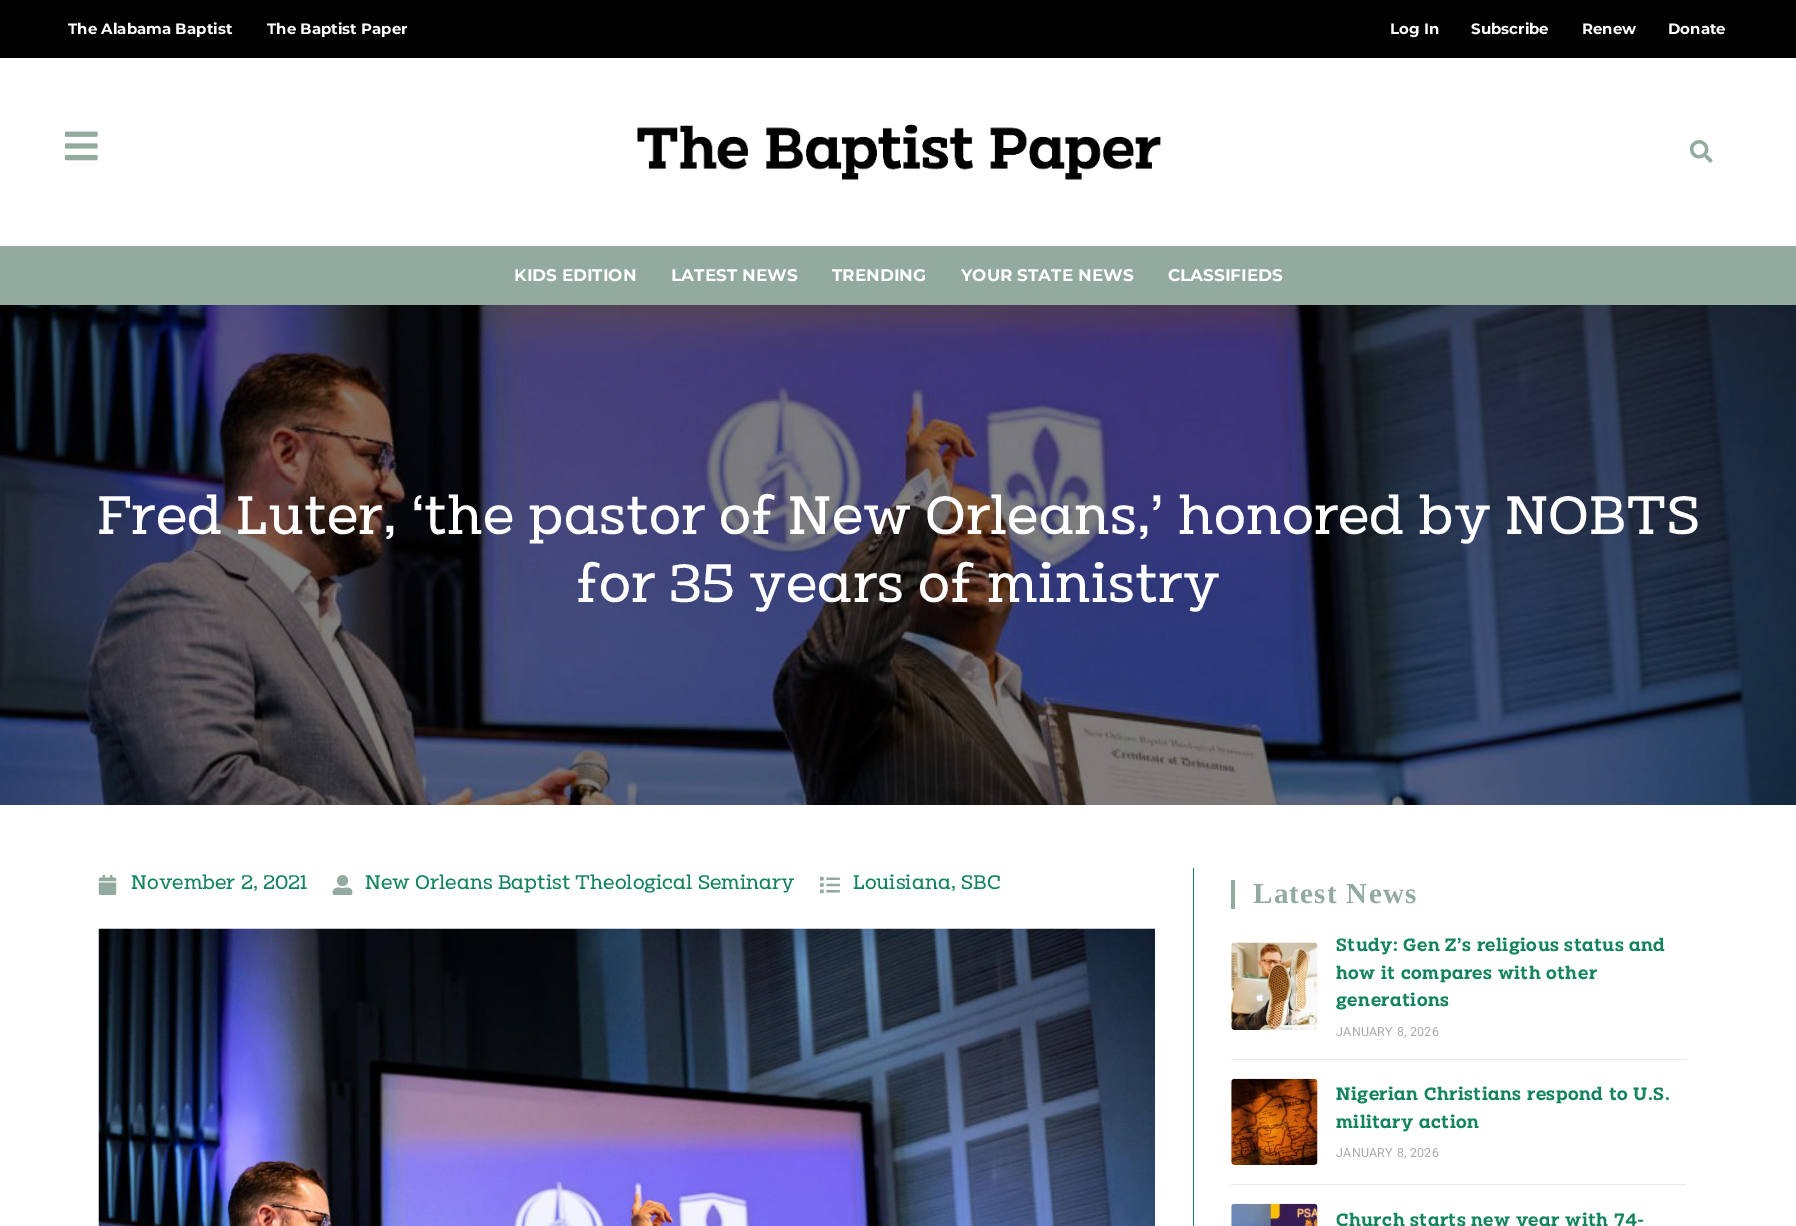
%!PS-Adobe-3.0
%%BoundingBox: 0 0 1796 1226
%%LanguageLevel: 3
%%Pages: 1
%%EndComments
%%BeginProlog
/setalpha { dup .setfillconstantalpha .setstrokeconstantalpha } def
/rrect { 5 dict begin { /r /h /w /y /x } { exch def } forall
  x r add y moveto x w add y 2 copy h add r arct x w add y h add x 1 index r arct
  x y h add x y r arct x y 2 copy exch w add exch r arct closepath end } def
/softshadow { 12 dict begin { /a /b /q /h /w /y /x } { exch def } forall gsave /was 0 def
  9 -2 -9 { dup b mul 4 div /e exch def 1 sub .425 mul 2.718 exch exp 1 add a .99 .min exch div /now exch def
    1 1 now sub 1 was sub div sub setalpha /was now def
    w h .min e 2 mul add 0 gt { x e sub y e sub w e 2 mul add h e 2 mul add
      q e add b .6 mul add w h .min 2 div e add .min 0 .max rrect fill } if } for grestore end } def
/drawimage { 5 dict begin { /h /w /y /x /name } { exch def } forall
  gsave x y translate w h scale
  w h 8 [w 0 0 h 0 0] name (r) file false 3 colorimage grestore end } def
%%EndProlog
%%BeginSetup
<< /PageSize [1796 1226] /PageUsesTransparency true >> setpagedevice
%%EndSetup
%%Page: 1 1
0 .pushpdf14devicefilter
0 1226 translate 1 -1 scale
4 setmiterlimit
1 setgray
0 0 1796 1226 rectfill
0.576 0.667 0.624 setrgbcolor
0 304 1796 1 rectfill
0 setgray
0 0 1796 58 rectfill
(images/4.raw) 0 305 1796 500 drawimage
gsave
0 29 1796 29 rectclip
0 58 1796 188 0 25 0.16 softshadow
grestore
(images/1.raw) 64 131 34 30 drawimage
(images/2.raw) 637 124 524 56 drawimage
(images/3.raw) 1689 140 24 23 drawimage
0.576 0.667 0.624 setrgbcolor
0 246 1796 58 rectfill
0.075 0.518 0.361 setrgbcolor
1193 868 1 358 rectfill
(images/5.raw) 98 875 19 20 drawimage
(images/6.raw) 332 875 21 20 drawimage
(images/7.raw) 820 876 20 18 drawimage
(images/8.raw) 98 928 1057 298 drawimage
0.576 0.667 0.624 setrgbcolor
1231 880 4 29 rectfill
(images/9.raw) 1231 942 87 88 drawimage
0.914 setgray
1231 1059 455 1 rectfill
(images/10.raw) 1231 1078 87 87 drawimage
1231 1184 455 1 rectfill
(images/11.raw) 1231 1203 87 23 drawimage
/Montserrat-Bold [15 0 0 -15 0 0] selectfont
1 setgray
68 34 moveto (The Alabama Baptist) show
267 34 moveto (The Baptist Paper) show
1390 34 moveto (Log In) show
1471 34 moveto (Subscribe) show
1582 34 moveto (Renew) show
1668 34 moveto (Donate) show
/Montserrat-Bold [16.9 0 0 -16.9 0 0] selectfont
514 281 moveto (KIDS EDITION) show
671 281 moveto (LATEST NEWS) show
832 281 moveto (TRENDING) show
961 281 moveto (YOUR STATE NEWS) show
1168 281 moveto (CLASSIFIEDS) show
/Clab-Regular [56.25 0 0 -56.25 0 0] selectfont
97 534 moveto (Fred Luter, ‘the pastor of New Orleans,’ honored by NOBTS) show
576 602 moveto (for 35 years of ministry) show
/Clab-Regular [20.6 0 0 -20.6 0 0] selectfont
0.075 0.518 0.361 setrgbcolor
131 889 moveto (November 2, 2021) show
365 889 moveto (New Orleans Baptist Theological Seminary) show
853 889 moveto (Louisiana, SBC) show
/LiberationSerif-Bold [29 0 0 -29 0 0] selectfont
0.576 0.667 0.624 setrgbcolor
1253 903 moveto 1.25 0 (Latest News) ashow
/Clab-SemiBold [18.6 0 0 -18.6 0 0] selectfont
0.075 0.518 0.361 setrgbcolor
1336 951 moveto 0.5 0 (Study: Gen Z’s religious status and) ashow
1336 979 moveto 0.5 0 (how it compares with other) ashow
1336 1006 moveto 0.5 0 (generations) ashow
/Roboto-Regular [12.5 0 0 -12.5 0 0] selectfont
0.667 setgray
1336 1036 moveto 0.25 0 (JANUARY 8, 2026) ashow
/Clab-SemiBold [18.6 0 0 -18.6 0 0] selectfont
0.075 0.518 0.361 setrgbcolor
1336 1100 moveto 0.5 0 (Nigerian Christians respond to U.S.) ashow
1336 1128 moveto 0.5 0 (military action) ashow
/Roboto-Regular [12.5 0 0 -12.5 0 0] selectfont
0.667 setgray
1336 1157 moveto 0.25 0 (JANUARY 8, 2026) ashow
/Clab-SemiBold [18.6 0 0 -18.6 0 0] selectfont
0.075 0.518 0.361 setrgbcolor
1336 1226 moveto 0.5 0 (Church starts new year with 74-) ashow
.poppdf14devicefilter showpage
%%EOF
